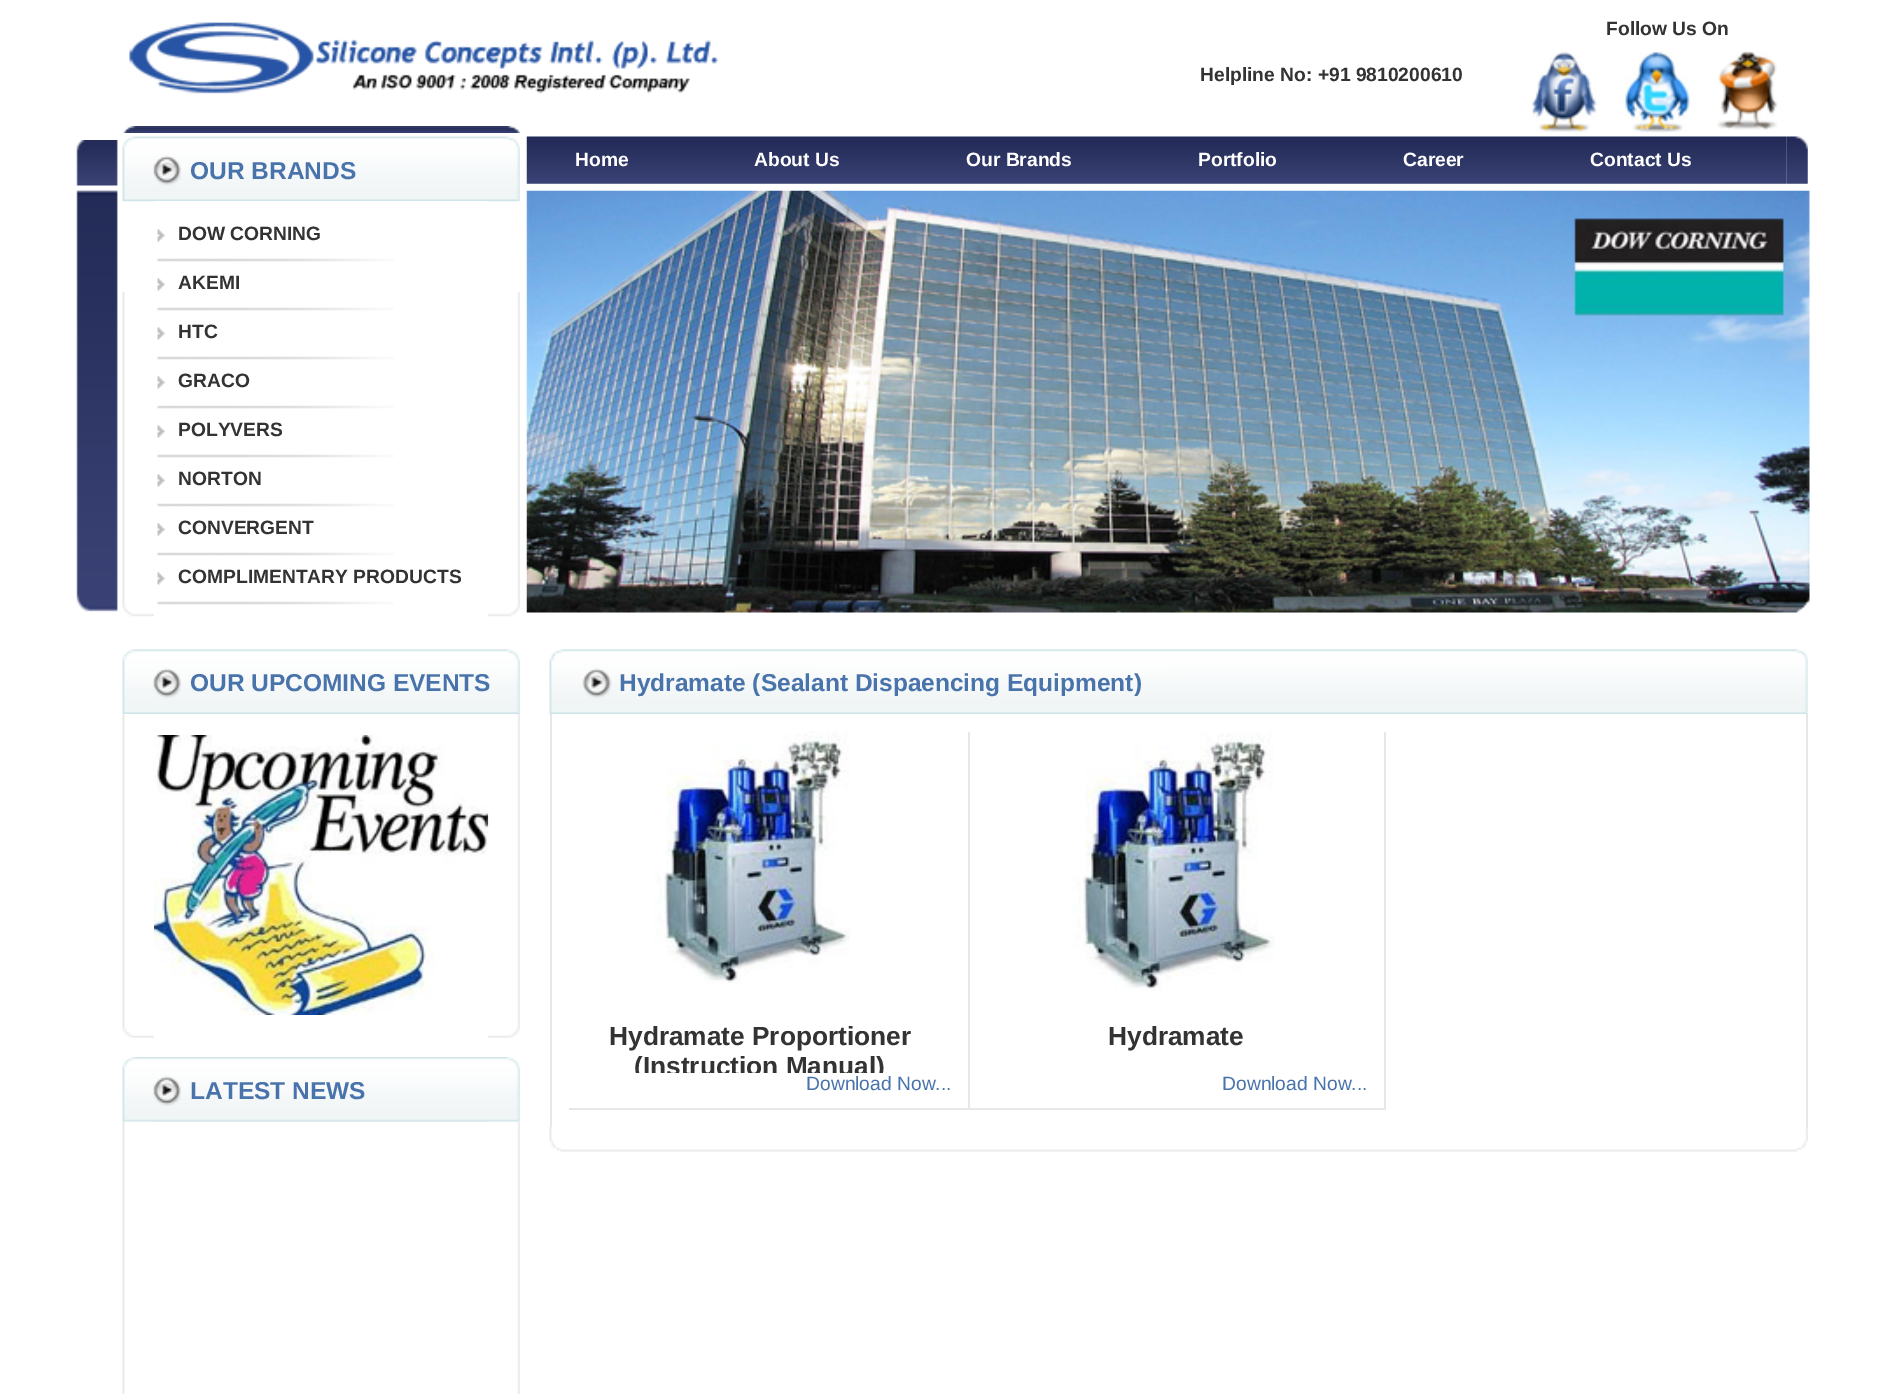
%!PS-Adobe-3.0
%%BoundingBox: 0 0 1880 1394
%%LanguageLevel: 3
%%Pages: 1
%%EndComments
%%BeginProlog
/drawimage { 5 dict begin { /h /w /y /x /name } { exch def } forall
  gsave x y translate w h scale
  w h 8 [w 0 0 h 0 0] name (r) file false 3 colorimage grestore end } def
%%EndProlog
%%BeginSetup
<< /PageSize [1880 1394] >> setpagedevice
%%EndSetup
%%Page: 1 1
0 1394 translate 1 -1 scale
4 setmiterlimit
1 setgray
0 0 1880 1394 rectfill
(images/1.raw) 123 126 397 7 drawimage
(images/2.raw) 129 22 589 72 drawimage
(images/3.raw) 1532 52 65 80 drawimage
(images/4.raw) 1717 51 61 79 drawimage
(images/5.raw) 1621 52 70 81 drawimage
(images/6.raw) 76 140 42 472 drawimage
(images/7.raw) 526 136 1261 48 drawimage
(images/8.raw) 1786 136 22 48 drawimage
(images/9.raw) 122 136 398 66 drawimage
(images/10.raw) 122 292 32 325 drawimage
154 201 334 1 rectfill
(images/11.raw) 157 229 237 33 drawimage
(images/12.raw) 157 278 237 33 drawimage
(images/12.raw) 157 327 237 33 drawimage
(images/12.raw) 157 376 237 33 drawimage
(images/12.raw) 157 425 237 33 drawimage
(images/12.raw) 157 474 237 33 drawimage
(images/12.raw) 157 523 237 33 drawimage
(images/12.raw) 157 572 237 33 drawimage
(images/13.raw) 488 292 32 325 drawimage
(images/14.raw) 526 190 1284 423 drawimage
(images/15.raw) 122 649 398 65 drawimage
(images/16.raw) 122 714 32 324 drawimage
(images/18.raw) 488 714 32 324 drawimage
(images/17.raw) 154 735 335 280 drawimage
(images/19.raw) 122 1057 398 65 drawimage
(images/20.raw) 122 1121 32 273 drawimage
(images/21.raw) 488 1121 32 273 drawimage
(images/22.raw) 549 649 1259 65 drawimage
0.906 setgray
1806 714 2 413 rectfill
550 714 2 413 rectfill
968 732 2 378 rectfill
569 1108 401 2 rectfill
(images/23.raw) 653 731 197 253 drawimage
1384 732 2 378 rectfill
970 1108 416 2 rectfill
(images/24.raw) 1072 732 203 259 drawimage
(images/25.raw) 549 1127 1259 25 drawimage
/LiberationSans-Bold [19.25 0 0 -19.25 0 0] selectfont
0.2 setgray
1606 35 moveto (Follow Us On) show
1200 81 moveto (Helpline No: +91 9810200610) show
1 setgray
575 166 moveto (Home) show
754 166 moveto (About Us) show
966 166 moveto (Our Brands) show
1198 166 moveto (Portfolio) show
1403 166 moveto (Career) show
1590 166 moveto (Contact Us) show
/LiberationSans-Bold [24.5 0 0 -24.5 0 0] selectfont
0.286 0.451 0.671 setrgbcolor
190 179 moveto (OUR BRANDS) show
/LiberationSans-Bold [19.25 0 0 -19.25 0 0] selectfont
0.2 setgray
178 240 moveto (DOW CORNING) show
178 289 moveto (AKEMI) show
178 338 moveto (HTC) show
178 387 moveto (GRACO) show
178 436 moveto (POLYVERS) show
178 485 moveto (NORTON) show
178 534 moveto (CONVERGENT) show
178 583 moveto (COMPLIMENTARY PRODUCTS) show
/LiberationSans-Bold [24.5 0 0 -24.5 0 0] selectfont
0.286 0.451 0.671 setrgbcolor
190 691 moveto (OUR UPCOMING EVENTS) show
190 1099 moveto (LATEST NEWS) show
619 691 moveto (Hydramate \(Sealant Dispaencing Equipment\)) show
/LiberationSans-Bold [26.25 0 0 -26.25 0 0] selectfont
0.2 setgray
609 1045 moveto (Hydramate Proportioner) show
634 1075 moveto (\(Instruction Manual\)) show
1 setgray
635 1073 248 8 rectfill
/LiberationSans-Regular [19.25 0 0 -19.25 0 0] selectfont
0.286 0.451 0.671 setrgbcolor
806 1090 moveto (Download Now...) show
/LiberationSans-Bold [26.25 0 0 -26.25 0 0] selectfont
0.2 setgray
1108 1045 moveto (Hydramate) show
/LiberationSans-Regular [19.25 0 0 -19.25 0 0] selectfont
0.286 0.451 0.671 setrgbcolor
1222 1090 moveto (Download Now...) show
showpage
%%EOF
